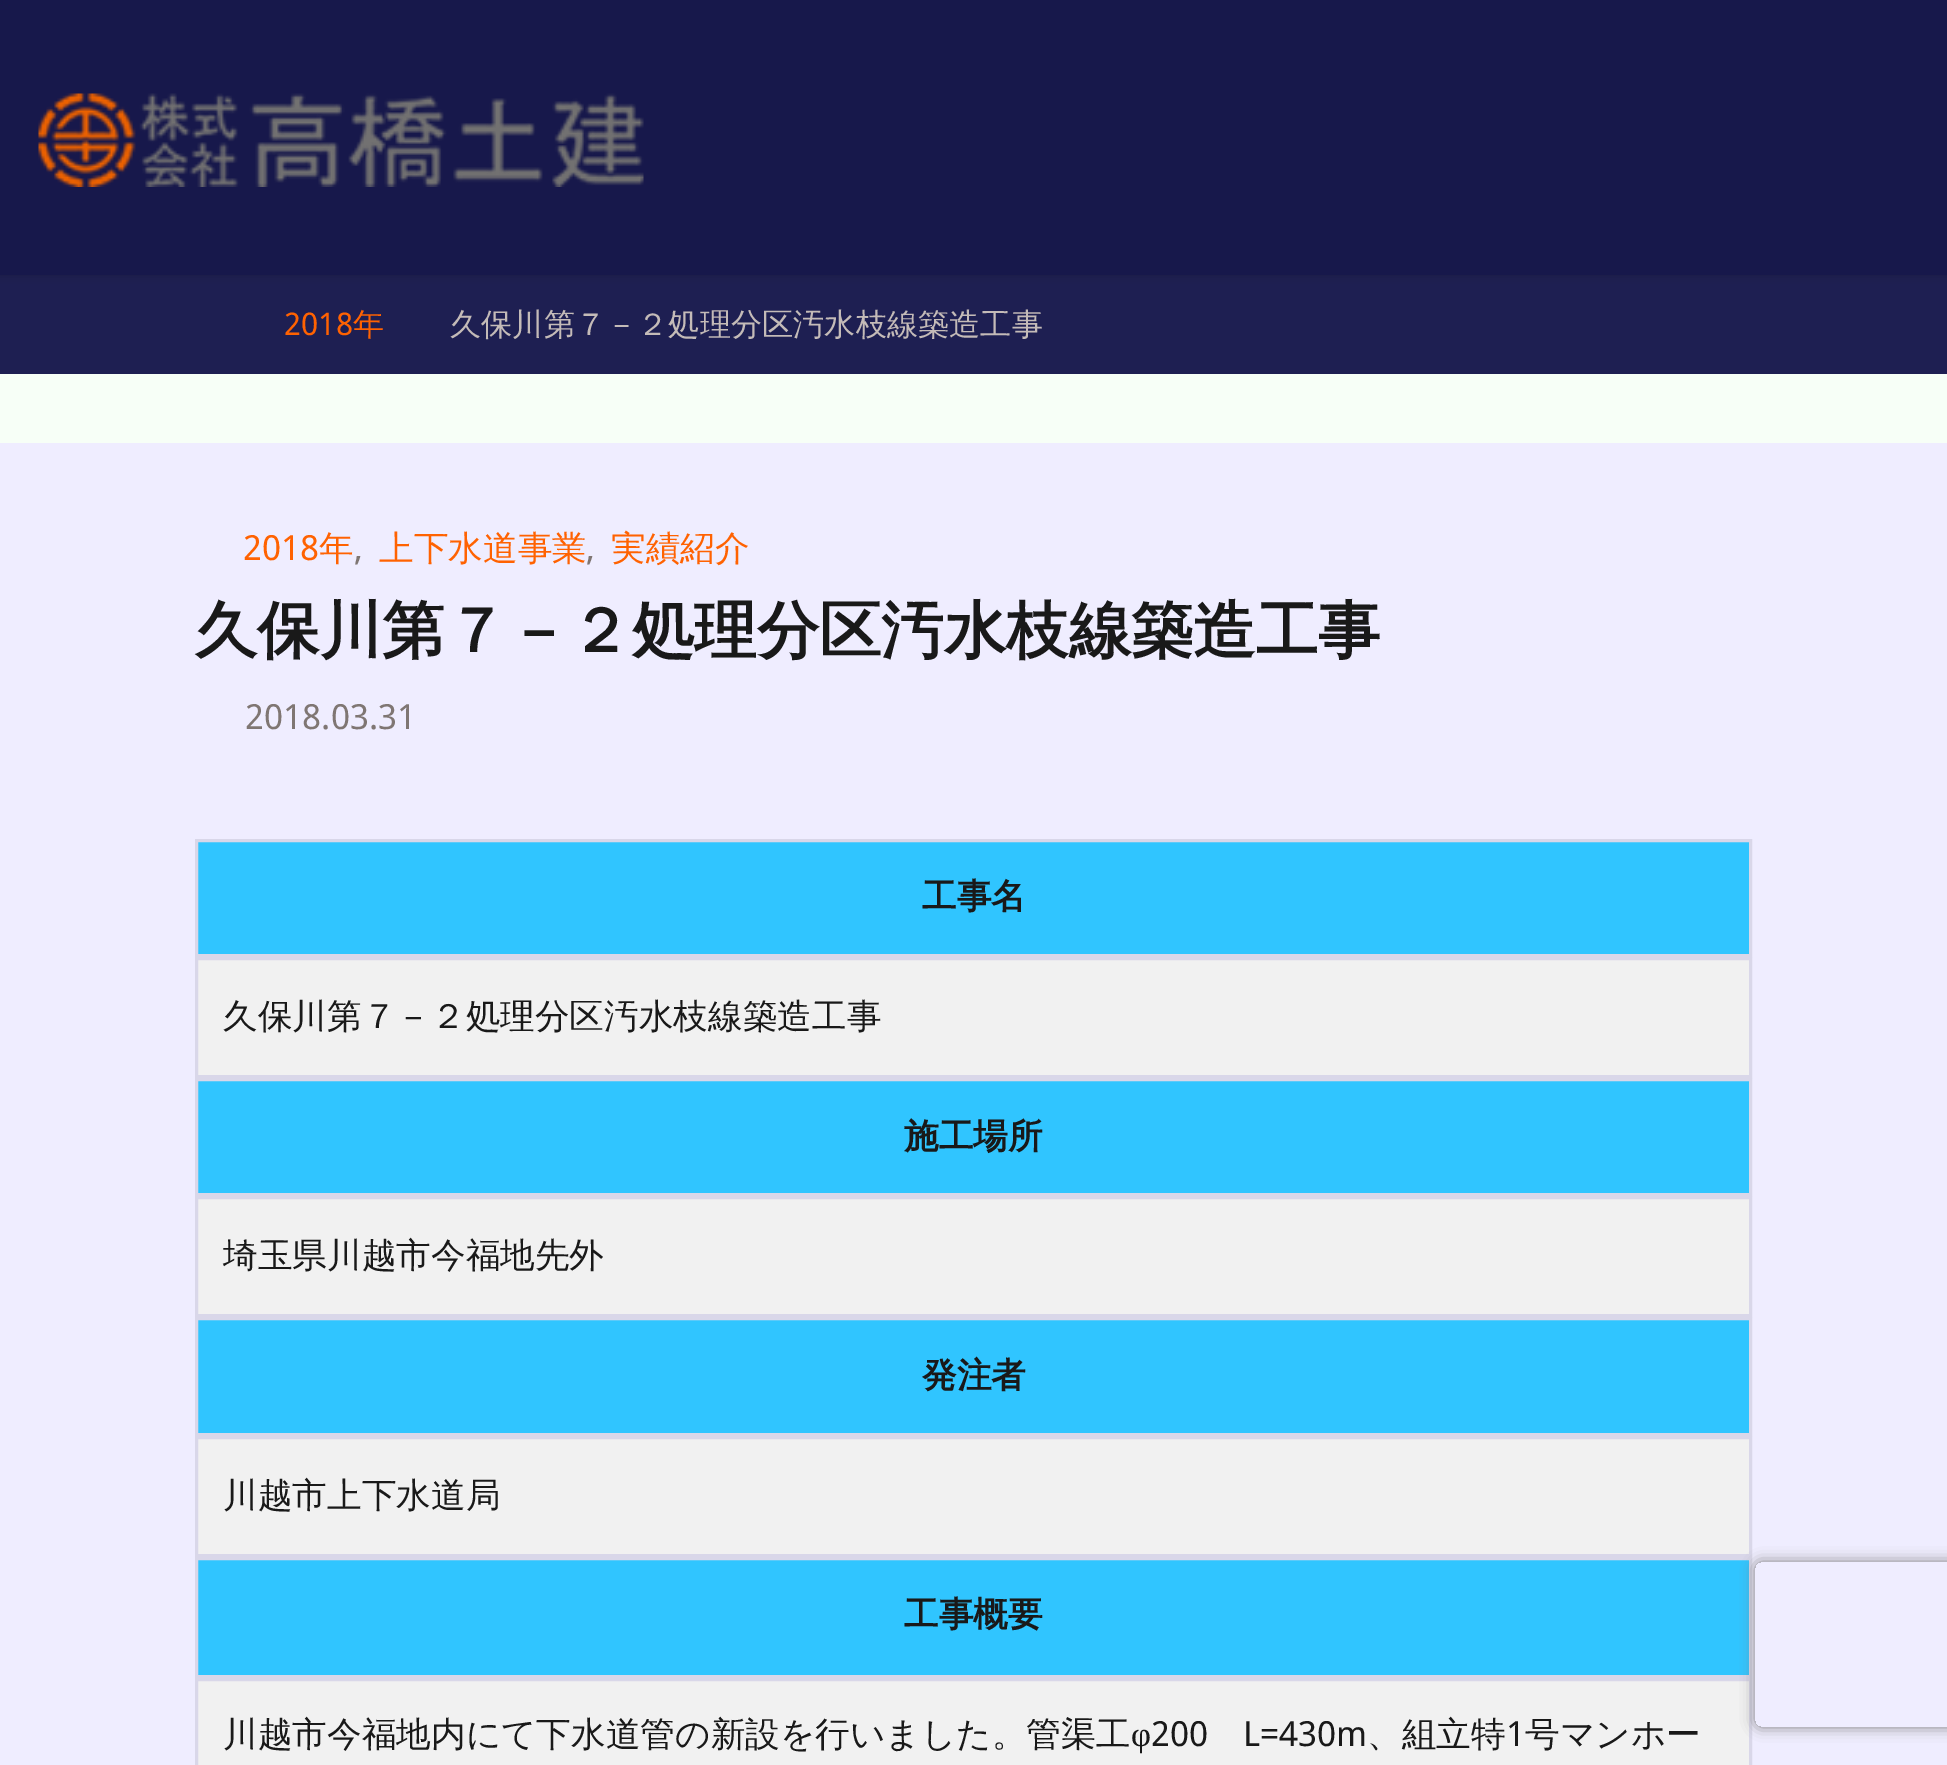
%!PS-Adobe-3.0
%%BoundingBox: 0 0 1947 1765
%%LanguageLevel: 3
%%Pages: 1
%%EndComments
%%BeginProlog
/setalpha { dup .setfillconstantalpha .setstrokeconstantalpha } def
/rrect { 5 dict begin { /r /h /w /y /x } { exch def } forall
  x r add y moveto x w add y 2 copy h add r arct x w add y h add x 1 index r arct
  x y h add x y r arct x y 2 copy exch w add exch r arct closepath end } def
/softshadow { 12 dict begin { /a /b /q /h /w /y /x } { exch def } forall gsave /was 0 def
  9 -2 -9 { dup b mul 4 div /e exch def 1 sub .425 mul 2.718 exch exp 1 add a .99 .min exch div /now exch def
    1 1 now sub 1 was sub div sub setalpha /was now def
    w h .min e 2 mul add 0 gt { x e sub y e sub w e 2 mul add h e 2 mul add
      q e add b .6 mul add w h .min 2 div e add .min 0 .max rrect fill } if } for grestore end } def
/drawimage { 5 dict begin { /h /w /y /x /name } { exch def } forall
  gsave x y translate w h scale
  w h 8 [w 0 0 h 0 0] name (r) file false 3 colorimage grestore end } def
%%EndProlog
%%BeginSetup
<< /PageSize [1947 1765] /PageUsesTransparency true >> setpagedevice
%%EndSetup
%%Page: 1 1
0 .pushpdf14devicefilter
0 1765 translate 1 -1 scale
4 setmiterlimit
0.969 1 0.969 setrgbcolor
0 0 1947 1765 rectfill
0.118 0.122 0.322 setrgbcolor
0 275 1947 99 rectfill
0 setgray
0 0 1947 275 0 4 0.2 softshadow
0.09 0.094 0.294 setrgbcolor
0 0 1947 275 rectfill
(images/1.raw) 38 93 606 94 drawimage
0.937 0.929 1 setrgbcolor
0 443 1947 1322 rectfill
0.188 0.773 1 setrgbcolor
newpath 196.5 840.5 moveto 1750.5 840.5 lineto 1750.5 955.5 lineto 196.5 955.5 lineto closepath gsave fill grestore
0.851 0.843 0.914 setrgbcolor
3 setlinewidth
stroke
0.945 setgray
newpath 196.5 958.5 moveto 1750.5 958.5 lineto 1750.5 1076.5 lineto 196.5 1076.5 lineto closepath gsave fill grestore
0.851 0.843 0.914 setrgbcolor
stroke
0.188 0.773 1 setrgbcolor
newpath 196.5 1079.5 moveto 1750.5 1079.5 lineto 1750.5 1194.5 lineto 196.5 1194.5 lineto closepath gsave fill grestore
0.851 0.843 0.914 setrgbcolor
stroke
0.945 setgray
newpath 196.5 1197.5 moveto 1750.5 1197.5 lineto 1750.5 1315.5 lineto 196.5 1315.5 lineto closepath gsave fill grestore
0.851 0.843 0.914 setrgbcolor
stroke
0.188 0.773 1 setrgbcolor
newpath 196.5 1318.5 moveto 1750.5 1318.5 lineto 1750.5 1434.5 lineto 196.5 1434.5 lineto closepath gsave fill grestore
0.851 0.843 0.914 setrgbcolor
stroke
0.945 setgray
newpath 196.5 1437.5 moveto 1750.5 1437.5 lineto 1750.5 1555.5 lineto 196.5 1555.5 lineto closepath gsave fill grestore
0.851 0.843 0.914 setrgbcolor
stroke
0.188 0.773 1 setrgbcolor
newpath 196.5 1558.5 moveto 1750.5 1558.5 lineto 1750.5 1676.5 lineto 196.5 1676.5 lineto closepath gsave fill grestore
0.851 0.843 0.914 setrgbcolor
stroke
0.945 setgray
newpath 196.5 1679.5 moveto 1750.5 1679.5 lineto 1750.5 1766.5 lineto 196.5 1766.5 lineto closepath gsave fill grestore
0.851 0.843 0.914 setrgbcolor
stroke
gsave
newpath 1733 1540 moveto 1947 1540 lineto 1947 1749 lineto 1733 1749 lineto closepath 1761 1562 moveto 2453 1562 lineto 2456.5 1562 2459 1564.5 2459 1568 curveto 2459 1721 lineto 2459 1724.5 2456.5 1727 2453 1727 curveto 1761 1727 lineto 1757.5 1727 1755 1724.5 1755 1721 curveto 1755 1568 lineto 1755 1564.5 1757.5 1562 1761 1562 curveto closepath eoclip newpath
0.502 setgray
1755 1562 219 165 6 7 1 softshadow
grestore
/DroidSans-Regular [31.2 0 0 -31.2 0 0] selectfont
1 0.384 0.004 setrgbcolor
284 335 moveto (2018) show
/WenQuanYiZenHei-Medium [31.2 0 0 -31.2 0 0] selectfont
353 335 moveto (年) show
0.769 0.733 0.722 setrgbcolor
450 335 moveto (久保川第７－２処理分区汚水枝線築造工事) show
/DroidSans-Regular [34.65 0 0 -34.65 0 0] selectfont
1 0.384 0.004 setrgbcolor
243 560 moveto (2018) show
/WenQuanYiZenHei-Medium [34.65 0 0 -34.65 0 0] selectfont
319 560 moveto (年) show
/DroidSans-Regular [34.65 0 0 -34.65 0 0] selectfont
0.498 0.463 0.451 setrgbcolor
354 560 moveto (,) show
/WenQuanYiZenHei-Medium [34.65 0 0 -34.65 0 0] selectfont
1 0.384 0.004 setrgbcolor
379 560 moveto (上下水道事業) show
/DroidSans-Regular [34.65 0 0 -34.65 0 0] selectfont
0.498 0.463 0.451 setrgbcolor
586 560 moveto (,) show
/WenQuanYiZenHei-Medium [34.65 0 0 -34.65 0 0] selectfont
1 0.384 0.004 setrgbcolor
611 560 moveto (実績紹介) show
/WenQuanYiZenHei-Bold [62.4 0 0 -62.4 0 0] selectfont
0.098 setgray
195 652 moveto (久保川第７－２処理分区汚水枝線築造工事) show
/DroidSans-Regular [34.65 0 0 -34.65 0 0] selectfont
0.498 0.463 0.451 setrgbcolor
245 729 moveto (2018.03.31) show
/WenQuanYiZenHei-Bold [34.65 0 0 -34.65 0 0] selectfont
0.098 setgray
922 908 moveto (工事名) show
/WenQuanYiZenHei-Medium [34.65 0 0 -34.65 0 0] selectfont
223 1028 moveto (久保川第７－２処理分区汚水枝線築造工事) show
/WenQuanYiZenHei-Bold [34.65 0 0 -34.65 0 0] selectfont
904 1148 moveto (施工場所) show
/WenQuanYiZenHei-Medium [34.65 0 0 -34.65 0 0] selectfont
223 1267 moveto (埼玉県川越市今福地先外) show
/WenQuanYiZenHei-Bold [34.65 0 0 -34.65 0 0] selectfont
922 1387 moveto (発注者) show
/WenQuanYiZenHei-Medium [34.65 0 0 -34.65 0 0] selectfont
223 1507 moveto (川越市上下水道局) show
/WenQuanYiZenHei-Bold [34.65 0 0 -34.65 0 0] selectfont
904 1626 moveto (工事概要) show
/WenQuanYiZenHei-Medium [34.65 0 0 -34.65 0 0] selectfont
223 1746 moveto (川越市今福地内にて下水道管の新設を行いました。管渠工) show
/LiberationSerif-Regular [34.65 0 0 -34.65 0 0] selectfont
1131 1746 moveto (φ) show
/DroidSans-Regular [34.65 0 0 -34.65 0 0] selectfont
1151 1746 moveto (200) show
1243 1746 moveto (L=430m) show
/WenQuanYiZenHei-Medium [34.65 0 0 -34.65 0 0] selectfont
1367 1746 moveto (、組立特) show
/DroidSans-Regular [34.65 0 0 -34.65 0 0] selectfont
1506 1746 moveto (1) show
/WenQuanYiZenHei-Medium [34.65 0 0 -34.65 0 0] selectfont
1525 1746 moveto (号マンホー) show
.poppdf14devicefilter showpage
%%EOF
